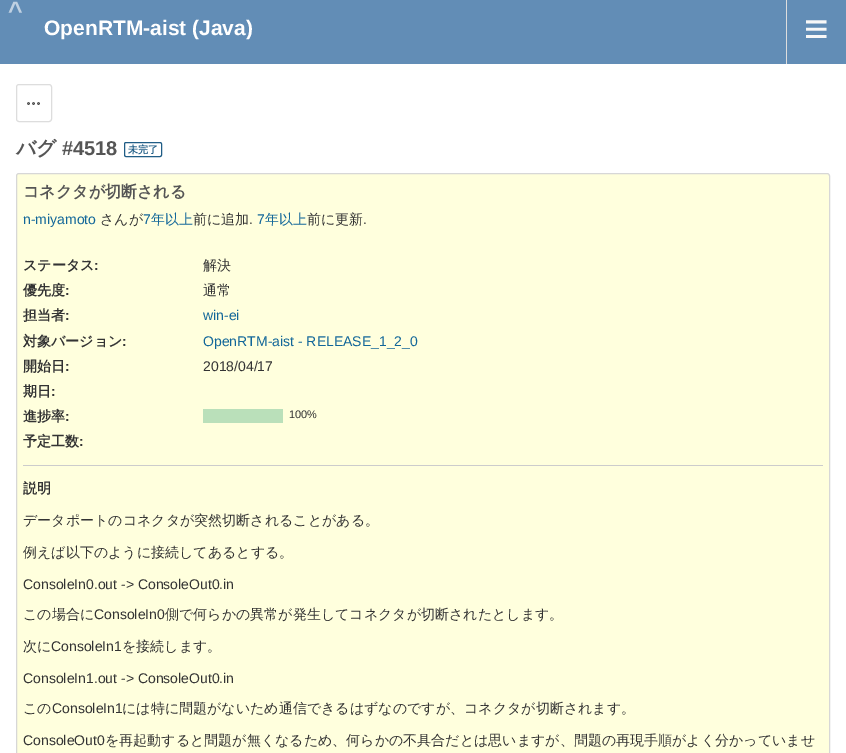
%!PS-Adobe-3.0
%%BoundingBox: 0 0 846 753
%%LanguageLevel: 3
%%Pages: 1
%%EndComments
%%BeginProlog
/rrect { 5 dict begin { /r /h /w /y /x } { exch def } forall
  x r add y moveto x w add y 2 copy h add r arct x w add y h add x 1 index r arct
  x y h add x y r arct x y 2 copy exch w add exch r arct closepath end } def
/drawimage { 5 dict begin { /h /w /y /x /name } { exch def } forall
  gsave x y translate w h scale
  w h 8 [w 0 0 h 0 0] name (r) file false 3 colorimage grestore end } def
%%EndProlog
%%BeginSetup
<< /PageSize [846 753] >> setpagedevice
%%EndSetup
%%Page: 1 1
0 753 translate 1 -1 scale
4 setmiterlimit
1 setgray
0 0 846 753 rectfill
0.384 0.553 0.714 setrgbcolor
0 0 846 64 rectfill
0.867 setgray
786 0 1 64 rectfill
16.5 84.5 35 37 2.5 rrect stroke
(images/1.raw) 27 102 13 3 drawimage
0.125 0.365 0.525 setrgbcolor
124.5 142.5 37 14 1.5 rrect stroke
1 1 0.867 setrgbcolor
16.5 173.5 813 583 2.5 rrect gsave fill grestore
0.843 setgray
stroke
0.729 0.878 0.729 setrgbcolor
203 409 80 14 rectfill
0.8 setgray
23 465 800 1 rectfill
/LiberationSans-Bold [25 0 0 -25 0 0] selectfont
0.753 0.82 0.886 setrgbcolor
8 19 moveto 4 0 (^) ashow
/LiberationSans-Bold [21 0 0 -21 0 0] selectfont
1 setgray
44 35 moveto (OpenRTM-aist \(Java\)) show
/LiberationSans-Regular [42 0 0 -42 0 0] selectfont
0.973 setgray
804 43 moveto (≡) show
/WenQuanYiZenHei-Bold [20 0 0 -20 0 0] selectfont
0.333 setgray
16 155 moveto (バグ) show
/LiberationSans-Bold [20 0 0 -20 0 0] selectfont
62 155 moveto (#4518) show
/WenQuanYiZenHei-Bold [10 0 0 -10 0 0] selectfont
0.125 0.365 0.525 setrgbcolor
128 153 moveto (未完了) show
/WenQuanYiZenHei-Bold [16 0 0 -16 0 0] selectfont
0.333 setgray
23 197 moveto (コネクタが切断される) show
/LiberationSans-Regular [14 0 0 -14 0 0] selectfont
0.067 0.4 0.6 setrgbcolor
23 224 moveto (n-miyamoto) show
/WenQuanYiZenHei-Medium [14 0 0 -14 0 0] selectfont
0.2 setgray
100 224 moveto (さんが) show
/LiberationSans-Regular [14 0 0 -14 0 0] selectfont
0.067 0.4 0.6 setrgbcolor
143 224 moveto (7) show
/WenQuanYiZenHei-Medium [14 0 0 -14 0 0] selectfont
151 224 moveto (年以上) show
0.2 setgray
193 224 moveto (前に追加) show
/LiberationSans-Regular [14 0 0 -14 0 0] selectfont
249 224 moveto (.) show
0.067 0.4 0.6 setrgbcolor
257 224 moveto (7) show
/WenQuanYiZenHei-Medium [14 0 0 -14 0 0] selectfont
265 224 moveto (年以上) show
0.2 setgray
307 224 moveto (前に更新) show
/LiberationSans-Regular [14 0 0 -14 0 0] selectfont
363 224 moveto (.) show
/WenQuanYiZenHei-Bold [14 0 0 -14 0 0] selectfont
23 270 moveto (ステータス) show
/LiberationSans-Bold [14 0 0 -14 0 0] selectfont
94 270 moveto (:) show
/WenQuanYiZenHei-Medium [14 0 0 -14 0 0] selectfont
203 270 moveto (解決) show
/WenQuanYiZenHei-Bold [14 0 0 -14 0 0] selectfont
23 295 moveto (優先度) show
/LiberationSans-Bold [14 0 0 -14 0 0] selectfont
65 295 moveto (:) show
/WenQuanYiZenHei-Medium [14 0 0 -14 0 0] selectfont
203 295 moveto (通常) show
/WenQuanYiZenHei-Bold [14 0 0 -14 0 0] selectfont
23 320 moveto (担当者) show
/LiberationSans-Bold [14 0 0 -14 0 0] selectfont
65 320 moveto (:) show
/LiberationSans-Regular [14 0 0 -14 0 0] selectfont
0.067 0.4 0.6 setrgbcolor
203 320 moveto (win-ei) show
/WenQuanYiZenHei-Bold [14 0 0 -14 0 0] selectfont
0.2 setgray
23 346 moveto (対象バージョン) show
/LiberationSans-Bold [14 0 0 -14 0 0] selectfont
122 346 moveto (:) show
/LiberationSans-Regular [14 0 0 -14 0 0] selectfont
0.067 0.4 0.6 setrgbcolor
203 346 moveto (OpenRTM-aist - RELEASE_1_2_0) show
/WenQuanYiZenHei-Bold [14 0 0 -14 0 0] selectfont
0.2 setgray
23 371 moveto (開始日) show
/LiberationSans-Bold [14 0 0 -14 0 0] selectfont
65 371 moveto (:) show
/LiberationSans-Regular [14 0 0 -14 0 0] selectfont
203 371 moveto (2018/04/17) show
/WenQuanYiZenHei-Bold [14 0 0 -14 0 0] selectfont
23 396 moveto (期日) show
/LiberationSans-Bold [14 0 0 -14 0 0] selectfont
51 396 moveto (:) show
/WenQuanYiZenHei-Bold [14 0 0 -14 0 0] selectfont
23 421 moveto (進捗率) show
/LiberationSans-Bold [14 0 0 -14 0 0] selectfont
65 421 moveto (:) show
/LiberationSans-Regular [11 0 0 -11 0 0] selectfont
289 418 moveto (100%) show
/WenQuanYiZenHei-Bold [14 0 0 -14 0 0] selectfont
23 446 moveto (予定工数) show
/LiberationSans-Bold [14 0 0 -14 0 0] selectfont
79 446 moveto (:) show
/WenQuanYiZenHei-Bold [14 0 0 -14 0 0] selectfont
23 493 moveto (説明) show
/WenQuanYiZenHei-Medium [14 0 0 -14 0 0] selectfont
23 525 moveto (データポートのコネクタが突然切断されることがある。) show
23 557 moveto (例えば以下のように接続してあるとする。) show
/LiberationSans-Regular [14 0 0 -14 0 0] selectfont
23 589 moveto (ConsoleIn0.out -> ConsoleOut0.in) show
/WenQuanYiZenHei-Medium [14 0 0 -14 0 0] selectfont
23 619 moveto (この場合に) show
/LiberationSans-Regular [14 0 0 -14 0 0] selectfont
94 619 moveto (ConsoleIn0) show
/WenQuanYiZenHei-Medium [14 0 0 -14 0 0] selectfont
165 619 moveto (側で何らかの異常が発生してコネクタが切断されたとします。) show
23 651 moveto (次に) show
/LiberationSans-Regular [14 0 0 -14 0 0] selectfont
51 651 moveto (ConsoleIn1) show
/WenQuanYiZenHei-Medium [14 0 0 -14 0 0] selectfont
122 651 moveto (を接続します。) show
/LiberationSans-Regular [14 0 0 -14 0 0] selectfont
23 683 moveto (ConsoleIn1.out -> ConsoleOut0.in) show
/WenQuanYiZenHei-Medium [14 0 0 -14 0 0] selectfont
23 713 moveto (この) show
/LiberationSans-Regular [14 0 0 -14 0 0] selectfont
52 713 moveto (ConsoleIn1) show
/WenQuanYiZenHei-Medium [14 0 0 -14 0 0] selectfont
122 713 moveto (には特に問題がないため通信できるはずなのですが、コネクタが切断されます。) show
/LiberationSans-Regular [14 0 0 -14 0 0] selectfont
23 745 moveto (ConsoleOut0) show
/WenQuanYiZenHei-Medium [14 0 0 -14 0 0] selectfont
105 745 moveto (を再起動すると問題が無くなるため、何らかの不具合だとは思いますが、問題の再現手順がよく分かっていませ) show
showpage
%%EOF
